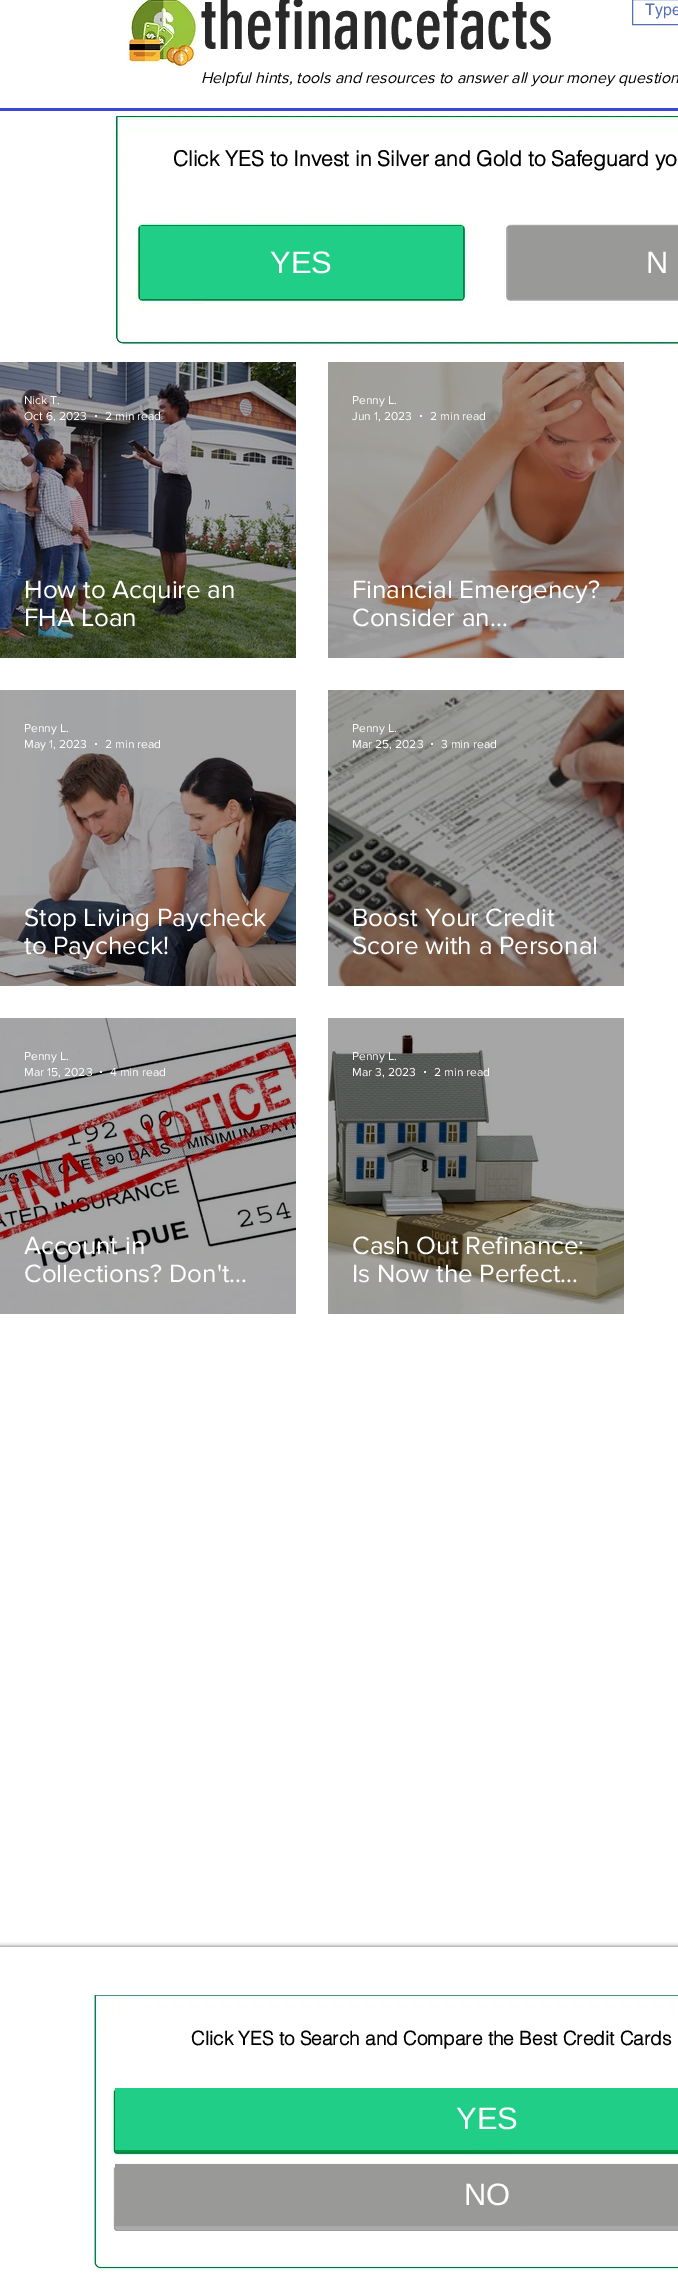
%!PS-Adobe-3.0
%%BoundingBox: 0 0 678 2286
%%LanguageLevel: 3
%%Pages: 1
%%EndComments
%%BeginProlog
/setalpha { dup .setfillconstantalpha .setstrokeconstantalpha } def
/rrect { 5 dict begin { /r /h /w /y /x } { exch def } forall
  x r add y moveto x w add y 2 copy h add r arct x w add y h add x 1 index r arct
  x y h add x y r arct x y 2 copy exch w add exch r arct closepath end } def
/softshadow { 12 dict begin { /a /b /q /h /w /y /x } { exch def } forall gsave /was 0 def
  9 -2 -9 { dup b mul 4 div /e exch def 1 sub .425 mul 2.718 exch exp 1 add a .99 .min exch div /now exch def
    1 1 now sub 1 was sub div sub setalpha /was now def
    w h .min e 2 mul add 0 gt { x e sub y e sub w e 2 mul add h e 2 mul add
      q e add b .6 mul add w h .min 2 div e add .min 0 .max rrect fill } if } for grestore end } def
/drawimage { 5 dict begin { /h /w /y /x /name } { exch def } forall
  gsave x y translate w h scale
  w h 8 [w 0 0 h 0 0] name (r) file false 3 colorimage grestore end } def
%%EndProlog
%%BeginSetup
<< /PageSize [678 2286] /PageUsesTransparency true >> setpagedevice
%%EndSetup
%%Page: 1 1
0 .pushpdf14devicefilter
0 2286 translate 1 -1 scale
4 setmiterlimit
1 setgray
0 0 678 2286 rectfill
(images/1.raw) 127 0 73 68 drawimage
0.337 0.435 0.722 setrgbcolor
632.5 -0.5 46 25 rectstroke
0.22 0.29 0.827 setrgbcolor
0 108 678 3 rectfill
(images/2.raw) 112 116 566 232 drawimage
1 setgray
164 152 512 28 rectfill
0.125 0.808 0.533 setrgbcolor
140 226 323 73 rectfill
0.6 0.6 0.592 setrgbcolor
508 226 170 73 rectfill
(images/3.raw) 0 362 296 296 drawimage
1 setgray
newpath 96 416 1 0 360 arc closepath fill
(images/4.raw) 328 362 296 296 drawimage
newpath 421 416 1 0 360 arc closepath fill
(images/5.raw) 0 690 296 296 drawimage
newpath 96 744 1 0 360 arc closepath fill
(images/6.raw) 328 690 296 296 drawimage
newpath 432 744 1 0 360 arc closepath fill
(images/7.raw) 0 1018 296 296 drawimage
newpath 101 1072 1 0 360 arc closepath fill
(images/8.raw) 328 1018 296 296 drawimage
newpath 425 1072 1 0 360 arc closepath fill
gsave
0 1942 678 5 rectclip
0 setgray
0 1947 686 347 0 2.5 0.6 softshadow
grestore
(images/9.raw) 92 1995 586 275 drawimage
156 2027 520 24 rectfill
0.125 0.808 0.533 setrgbcolor
115 2088 563 62 rectfill
0.6 0.6 0.592 setrgbcolor
115 2164 563 62 rectfill
/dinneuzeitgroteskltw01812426-Regular [70 0 0 -70 0 0] selectfont
0.161 setgray
200 49 moveto (thefinancefacts) show
/helvetica-Regular [16 0 0 -16 0 0] selectfont
0.337 0.435 0.722 setrgbcolor
645 15 moveto (Type) show
/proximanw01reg-Italic [16 0 0 -16 0 0] selectfont
0 setgray
201 83 moveto (Helpful hints, tools and resources to answer all your money question) show
/helvetica-Bold [21 0 0 -21 0 0] selectfont
173 166 moveto (Click YES to Invest in Silver and Gold to Safeguard yo) show
/LiberationSans-Regular [31 0 0 -31 0 0] selectfont
1 setgray
270 273 moveto (YES) show
646 273 moveto (N) show
/proximanw01reg-Regular [12 0 0 -12 0 0] selectfont
24 404 moveto (Nick T.) show
24 420 moveto (Oct 6, 2023) show
105 420 moveto (2 min read) show
/proximanw01reg-Regular [26 0 0 -26 0 0] selectfont
24 598 moveto (How to Acquire an) show
24 626 moveto (FHA Loan) show
/proximanw01reg-Regular [12 0 0 -12 0 0] selectfont
352 404 moveto (Penny L.) show
352 420 moveto (Jun 1, 2023) show
430 420 moveto (2 min read) show
/proximanw01reg-Regular [26 0 0 -26 0 0] selectfont
352 598 moveto (Financial Emergency?) show
352 626 moveto (Consider an…) show
/proximanw01reg-Regular [12 0 0 -12 0 0] selectfont
24 732 moveto (Penny L.) show
24 748 moveto (May 1, 2023) show
105 748 moveto (2 min read) show
/proximanw01reg-Regular [26 0 0 -26 0 0] selectfont
24 926 moveto (Stop Living Paycheck) show
24 954 moveto (to Paycheck!) show
/proximanw01reg-Regular [12 0 0 -12 0 0] selectfont
352 732 moveto (Penny L.) show
352 748 moveto (Mar 25, 2023) show
441 748 moveto (3 min read) show
/proximanw01reg-Regular [26 0 0 -26 0 0] selectfont
352 926 moveto (Boost Your Credit) show
352 954 moveto (Score with a Personal) show
/proximanw01reg-Regular [12 0 0 -12 0 0] selectfont
24 1060 moveto (Penny L.) show
24 1076 moveto (Mar 15, 2023) show
110 1076 moveto (4 min read) show
/proximanw01reg-Regular [26 0 0 -26 0 0] selectfont
24 1254 moveto (Account in) show
24 1282 moveto (Collections? Don't…) show
/proximanw01reg-Regular [12 0 0 -12 0 0] selectfont
352 1060 moveto (Penny L.) show
352 1076 moveto (Mar 3, 2023) show
434 1076 moveto (2 min read) show
/proximanw01reg-Regular [26 0 0 -26 0 0] selectfont
352 1254 moveto (Cash Out Refinance:) show
352 1282 moveto (Is Now the Perfect…) show
/helvetica-Bold [19 0 0 -19 0 0] selectfont
0 setgray
191 2045 moveto (Click YES to Search and Compare the Best Credit Cards) show
/LiberationSans-Regular [31 0 0 -31 0 0] selectfont
1 setgray
456 2129 moveto (YES) show
464 2205 moveto (NO) show
.poppdf14devicefilter showpage
%%EOF
